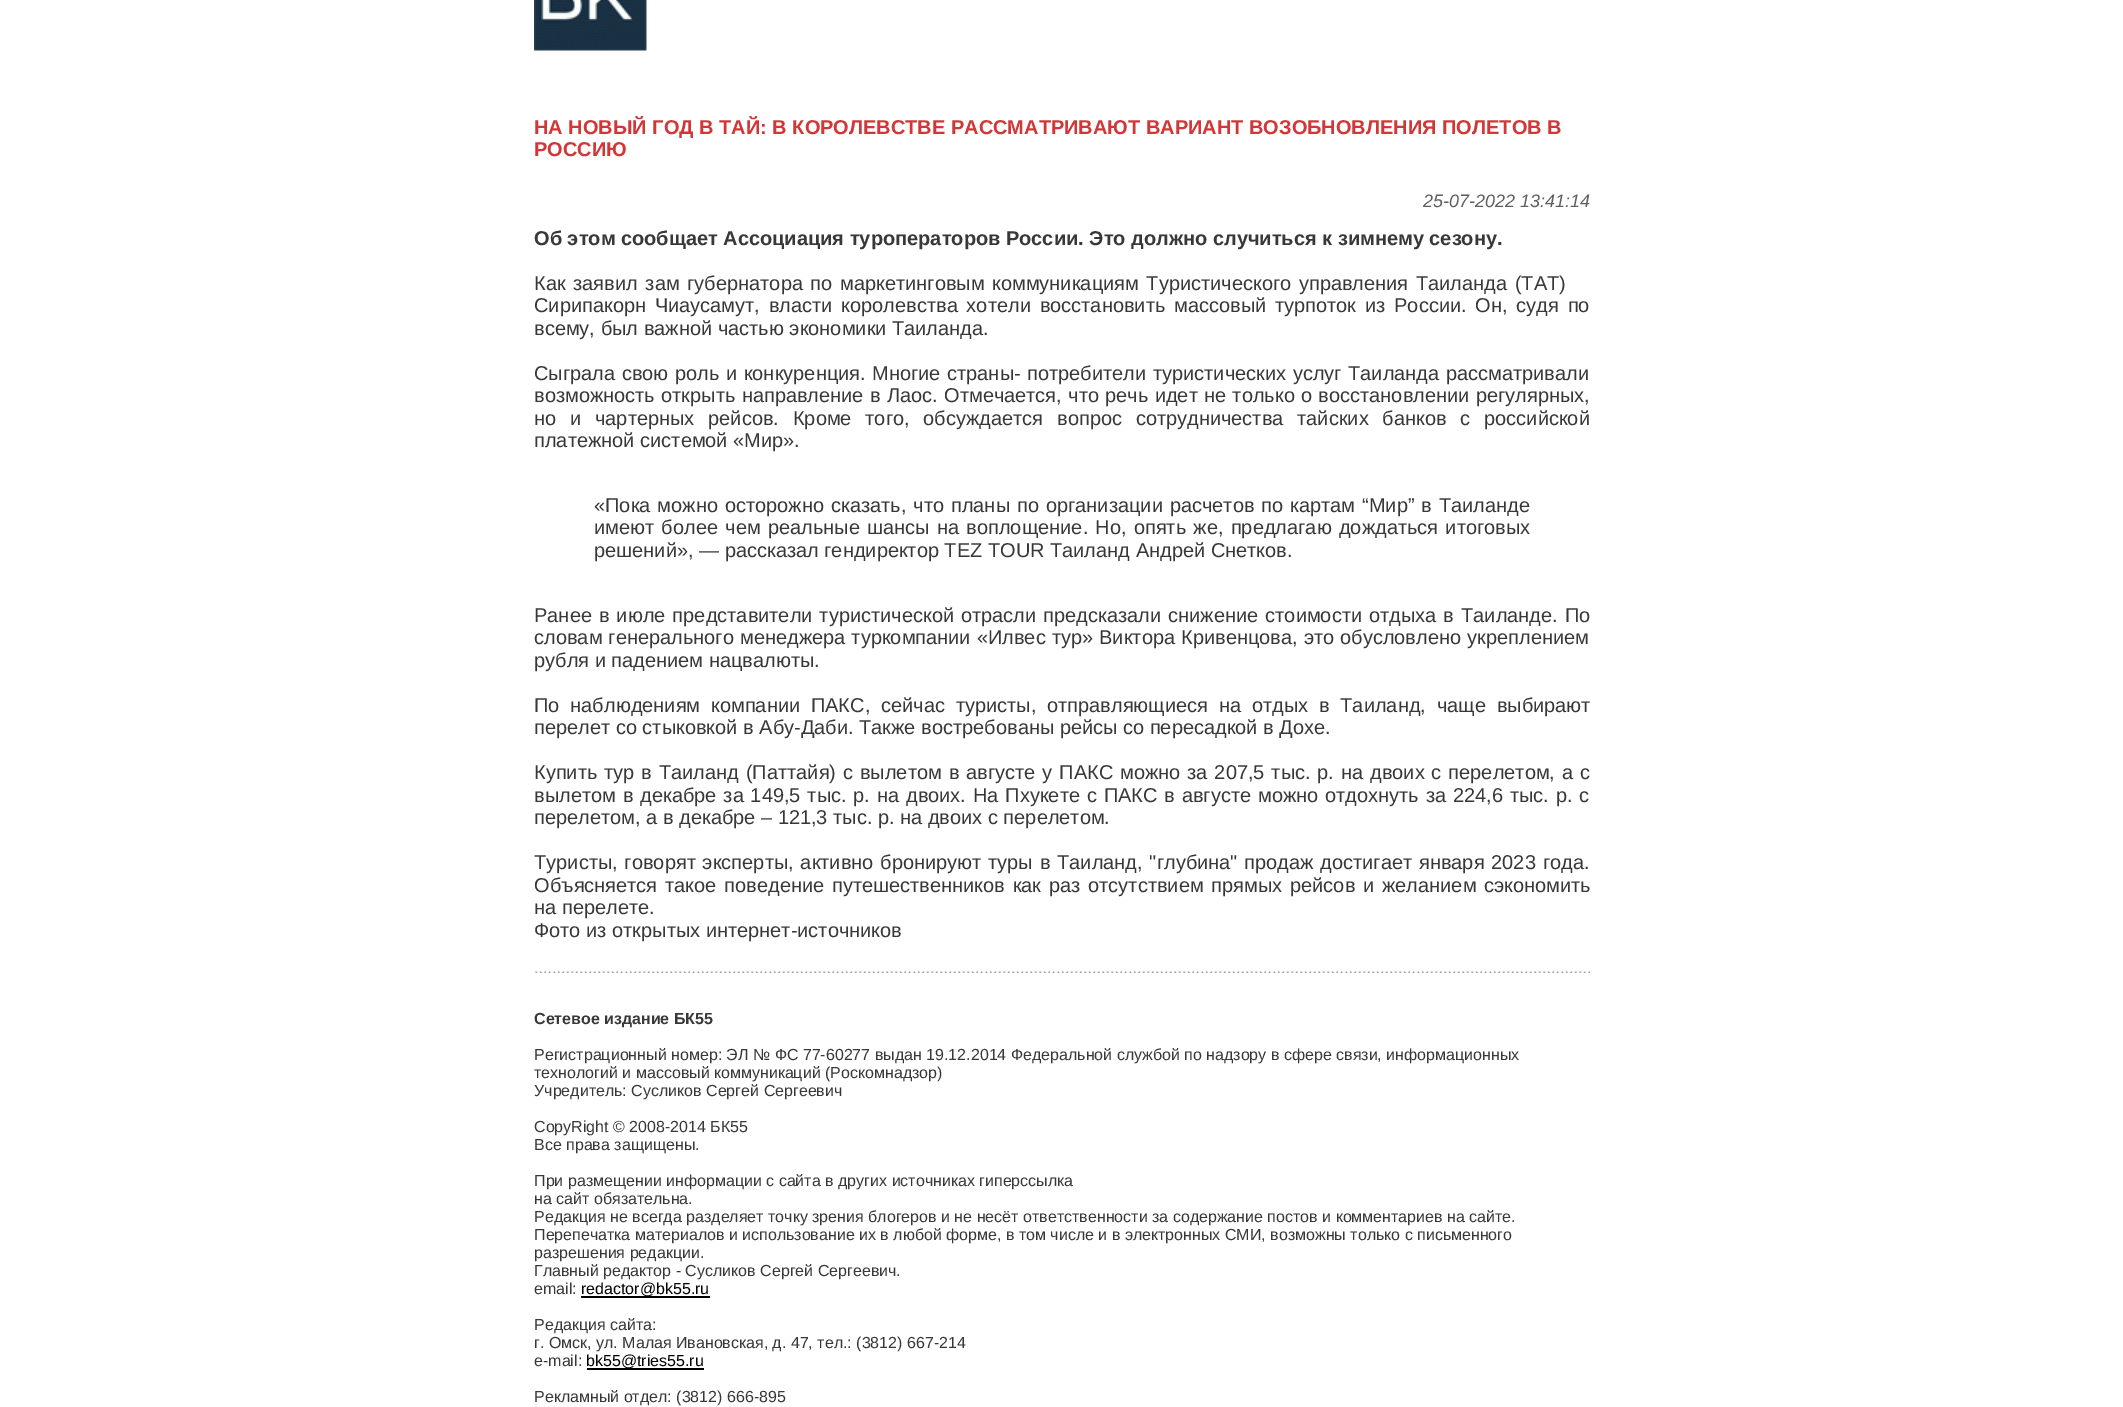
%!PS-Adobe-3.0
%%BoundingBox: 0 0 2123 1407
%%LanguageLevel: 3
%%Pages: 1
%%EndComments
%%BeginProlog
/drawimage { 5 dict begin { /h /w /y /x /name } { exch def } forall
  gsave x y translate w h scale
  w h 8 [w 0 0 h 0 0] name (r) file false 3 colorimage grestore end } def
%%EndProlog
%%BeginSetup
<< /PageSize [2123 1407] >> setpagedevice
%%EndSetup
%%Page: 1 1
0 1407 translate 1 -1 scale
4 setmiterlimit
1 setgray
0 0 2123 1407 rectfill
(images/1.raw) 534 0 113 51 drawimage
(images/2.raw) 535 971 1055 2 drawimage
0 setgray
581 1296 129 2 rectfill
587 1368 117 2 rectfill
/LiberationSans-Bold [20 0 0 -20 0 0] selectfont
0.82 0.216 0.216 setrgbcolor
534 134 moveto (НА НОВЫЙ ГОД В ТАЙ: В КОРОЛЕВСТВЕ РАССМАТРИВАЮТ ВАРИАНТ ВОЗОБНОВЛЕНИЯ ПОЛЕТОВ В) show
534 156 moveto (РОССИЮ) show
/LiberationSans-Italic [18 0 0 -18 0 0] selectfont
0.376 0.373 0.373 setrgbcolor
1423 207 moveto (25-07-2022 13:41:14) show
/LiberationSans-Bold [20 0 0 -20 0 0] selectfont
0.22 setgray
534 245 moveto (Об этом сообщает Ассоциация туроператоров России. Это должно случиться к зимнему сезону.) show
/LiberationSans-Regular [20 0 0 -20 0 0] selectfont
534 290 moveto 2.1 0 32 (Как заявил зам губернатора по маркетинговым коммуникациям Туристического управления Таиланда \(ТАТ\)) widthshow
534 312 moveto 3.25 0 32 (Сирипакорн Чиаусамут, власти королевства хотели восстановить массовый турпоток из России. Он, судя по) widthshow
534 335 moveto (всему, был важной частью экономики Таиланда.) show
534 380 moveto 1 0 32 (Сыграла свою роль и конкуренция. Многие страны- потребители туристических услуг Таиланда рассматривали) widthshow
534 402 moveto 0.75 0 32 (возможность открыть направление в Лаос. Отмечается, что речь идет не только о восстановлении регулярных,) widthshow
534 425 moveto 8.25 0 32 (но и чартерных рейсов. Кроме того, обсуждается вопрос сотрудничества тайских банков с российской) widthshow
534 447 moveto (платежной системой «Мир».) show
594 512 moveto 1.4 0 32 («Пока можно осторожно сказать, что планы по организации расчетов по картам “Мир” в Таиланде) widthshow
594 534 moveto 1.7 0 32 (имеют более чем реальные шансы на воплощение. Но, опять же, предлагаю дождаться итоговых) widthshow
594 557 moveto (решений», — рассказал гендиректор TEZ TOUR Таиланд Андрей Снетков.) show
534 622 moveto 1.5 0 32 (Ранее в июле представители туристической отрасли предсказали снижение стоимости отдыха в Таиланде. По) widthshow
534 644 moveto 0.5 0 32 (словам генерального менеджера туркомпании «Илвес тур» Виктора Кривенцова, это обусловлено укреплением) widthshow
534 667 moveto (рубля и падением нацвалюты.) show
534 712 moveto 5.25 0 32 (По наблюдениям компании ПАКС, сейчас туристы, отправляющиеся на отдых в Таиланд, чаще выбирают) widthshow
534 734 moveto (перелет со стыковкой в Абу-Даби. Также востребованы рейсы со пересадкой в Дохе.) show
534 779 moveto 1.35 0 32 (Купить тур в Таиланд \(Паттайя\) с вылетом в августе у ПАКС можно за 207,5 тыс. р. на двоих с перелетом, а с) widthshow
534 802 moveto 1.3 0 32 (вылетом в декабре за 149,5 тыс. р. на двоих. На Пхукете с ПАКС в августе можно отдохнуть за 224,6 тыс. р. с) widthshow
534 824 moveto (перелетом, а в декабре – 121,3 тыс. р. на двоих с перелетом.) show
534 869 moveto 1.25 0 32 (Туристы, говорят эксперты, активно бронируют туры в Таиланд, "глубина" продаж достигает января 2023 года.) widthshow
534 892 moveto 2.25 0 32 (Объясняется такое поведение путешественников как раз отсутствием прямых рейсов и желанием сэкономить) widthshow
534 914 moveto (на перелете.) show
534 937 moveto (Фото из открытых интернет-источников) show
/LiberationSans-Bold [16 0 0 -16 0 0] selectfont
534 1024 moveto (Сетевое издание БК55) show
/LiberationSans-Regular [16 0 0 -16 0 0] selectfont
534 1060 moveto (Регистрационный номер: ЭЛ № ФС 77-60277 выдан 19.12.2014 Федеральной службой по надзору в сфере связи, информационных) show
534 1078 moveto (технологий и массовый коммуникаций \(Роскомнадзор\)) show
534 1096 moveto (Учредитель: Сусликов Сергей Сергеевич) show
534 1132 moveto (CopyRight © 2008-2014 БК55) show
534 1150 moveto (Все права защищены.) show
534 1186 moveto (При размещении информации с сайта в других источниках гиперссылка) show
534 1204 moveto (на сайт обязательна.) show
534 1222 moveto (Редакция не всегда разделяет точку зрения блогеров и не несёт ответственности за содержание постов и комментариев на сайте.) show
534 1240 moveto (Перепечатка материалов и использование их в любой форме, в том числе и в электронных СМИ, возможны только с письменного) show
534 1258 moveto (разрешения редакции.) show
534 1276 moveto (Главный редактор - Сусликов Сергей Сергеевич.) show
534 1294 moveto (email:) show
0 setgray
581 1294 moveto (redactor@bk55.ru) show
0.22 setgray
534 1330 moveto (Редакция сайта:) show
534 1348 moveto (г. Омск, ул. Малая Ивановская, д. 47, тел.: \(3812\) 667-214) show
534 1366 moveto (e-mail:) show
0 setgray
586 1366 moveto (bk55@tries55.ru) show
0.22 setgray
534 1402 moveto (Рекламный отдел: \(3812\) 666-895) show
showpage
%%EOF
